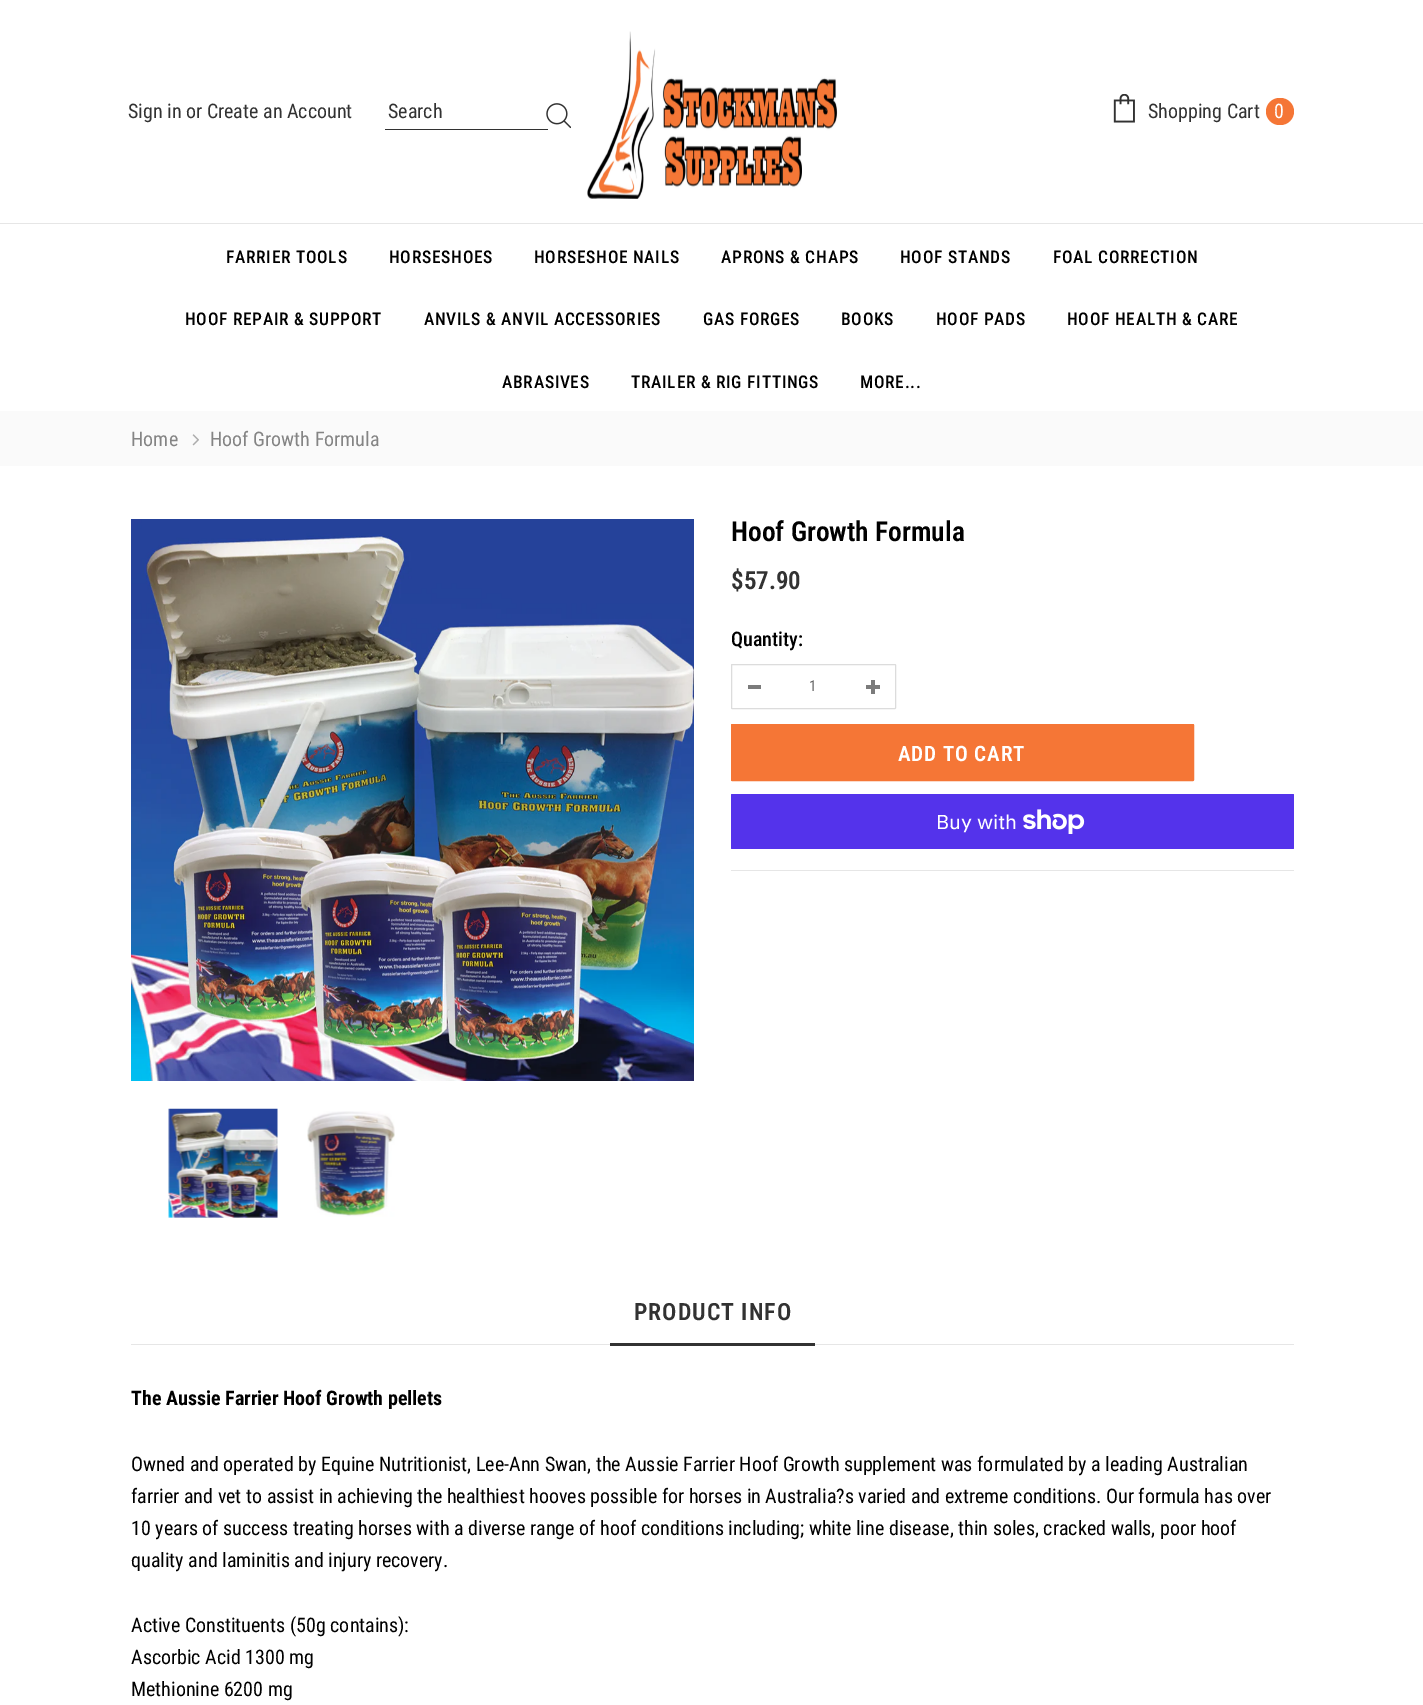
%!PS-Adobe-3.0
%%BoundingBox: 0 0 1423 1705
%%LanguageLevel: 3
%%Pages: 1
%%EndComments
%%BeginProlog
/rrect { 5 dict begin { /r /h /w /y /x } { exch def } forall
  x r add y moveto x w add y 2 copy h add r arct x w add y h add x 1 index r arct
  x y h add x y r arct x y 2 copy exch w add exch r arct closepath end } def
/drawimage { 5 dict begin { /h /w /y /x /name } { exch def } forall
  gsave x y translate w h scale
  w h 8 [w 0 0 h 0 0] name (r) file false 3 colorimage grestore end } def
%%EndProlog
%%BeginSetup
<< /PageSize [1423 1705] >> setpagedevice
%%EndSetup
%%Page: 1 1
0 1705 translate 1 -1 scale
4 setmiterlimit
1 setgray
0 0 1423 1705 rectfill
0.902 setgray
0 223 1423 1 rectfill
0.196 setgray
385 129 163 1 rectfill
(images/1.raw) 546 103 25 26 drawimage
(images/2.raw) 587 31 251 168 drawimage
(images/3.raw) 1113 94 22 29 drawimage
0.961 0.463 0.212 setrgbcolor
1266 98 28 27 13.5 rrect fill
0.98 setgray
0 411 1423 55 rectfill
(images/4.raw) 192 434 7 12 drawimage
(images/5.raw) 131 519 563 562 drawimage
(images/6.raw) 168 1108 110 110 drawimage
(images/7.raw) 307 1111 88 106 drawimage
0.902 setgray
731 870 563 1 rectfill
0.863 setgray
731.5 664.5 164 44 0.5 rrect stroke
0.482 setgray
748 685 13 4 rectfill
866 685 14 4 rectfill
871 680 4 14 rectfill
0.961 0.463 0.212 setrgbcolor
731.5 724.5 462 56 0.5 rrect gsave fill grestore
stroke
0.329 0.2 0.922 setrgbcolor
731 794 563 55 1 rrect fill
(images/8.raw) 1023 809 62 25 drawimage
0.902 setgray
131 1344 1163 1 rectfill
0.196 setgray
610 1343 205 3 rectfill
/RobotoCondensed-Regular [20 0 0 -20 0 0] selectfont
128 118 moveto (Sign in or Create an Account) show
388 118 moveto (Search) show
1148 118 moveto (Shopping Cart) show
1 setgray
1274 118 moveto (0) show
/RobotoCondensed-Medium [17.5 0 0 -17.5 0 0] selectfont
0 setgray
226 263 moveto 0.7 0 (FARRIER TOOLS) ashow
389 263 moveto 0.7 0 (HORSESHOES) ashow
534 263 moveto 0.7 0 (HORSESHOE NAILS) ashow
721 263 moveto 0.7 0 (APRONS & CHAPS) ashow
900 263 moveto 0.7 0 (HOOF STANDS) ashow
1053 263 moveto 0.7 0 (FOAL CORRECTION) ashow
185 325 moveto 0.7 0 (HOOF REPAIR & SUPPORT) ashow
424 325 moveto 0.7 0 (ANVILS & ANVIL ACCESSORIES) ashow
703 325 moveto 0.7 0 (GAS FORGES) ashow
841 325 moveto 0.7 0 (BOOKS) ashow
936 325 moveto 0.7 0 (HOOF PADS) ashow
1067 325 moveto 0.7 0 (HOOF HEALTH & CARE) ashow
502 388 moveto 0.7 0 (ABRASIVES) ashow
631 388 moveto 0.7 0 (TRAILER & RIG FITTINGS) ashow
860 388 moveto 0.7 0 (MORE...) ashow
/RobotoCondensed-Regular [20 0 0 -20 0 0] selectfont
0.518 setgray
131 446 moveto (Home) show
210 446 moveto (Hoof Growth Formula) show
/RobotoCondensed-SemiBold [27.5 0 0 -27.5 0 0] selectfont
0 setgray
731 541 moveto (Hoof Growth Formula) show
/RobotoCondensed-SemiBold [25 0 0 -25 0 0] selectfont
0.196 setgray
731 589 moveto ($57.90) show
/RobotoCondensed-Medium [20 0 0 -20 0 0] selectfont
0 setgray
731 646 moveto (Quantity:) show
/RobotoCondensed-Regular [15 0 0 -15 0 0] selectfont
0.392 setgray
809 691 moveto (1) show
/RobotoCondensed-SemiBold [21.25 0 0 -21.25 0 0] selectfont
1 setgray
898 761 moveto 0.8 0 (ADD TO CART) ashow
/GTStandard-Regular [20 0 0 -20 0 0] selectfont
936 829 moveto (Buy with) show
/RobotoCondensed-SemiBold [23.75 0 0 -23.75 0 0] selectfont
0.196 setgray
634 1320 moveto 1 0 (PRODUCT INFO) ashow
/RobotoCondensed-Bold [20 0 0 -20 0 0] selectfont
0 setgray
131 1405 moveto (The Aussie Farrier Hoof Growth pellets) show
/RobotoCondensed-Regular [20 0 0 -20 0 0] selectfont
131 1471 moveto (Owned and operated by Equine Nutritionist, Lee-Ann Swan, the Aussie Farrier Hoof Growth supplement was formulated by a leading Australian) show
131 1503 moveto (farrier and vet to assist in achieving the healthiest hooves possible for horses in Australia?s varied and extreme conditions. Our formula has over) show
131 1535 moveto (10 years of success treating horses with a diverse range of hoof conditions including; white line disease, thin soles, cracked walls, poor hoof) show
131 1567 moveto (quality and laminitis and injury recovery.) show
131 1632 moveto (Active Constituents \(50g contains\):) show
131 1664 moveto (Ascorbic Acid 1300 mg) show
131 1696 moveto (Methionine 6200 mg) show
showpage
%%EOF
